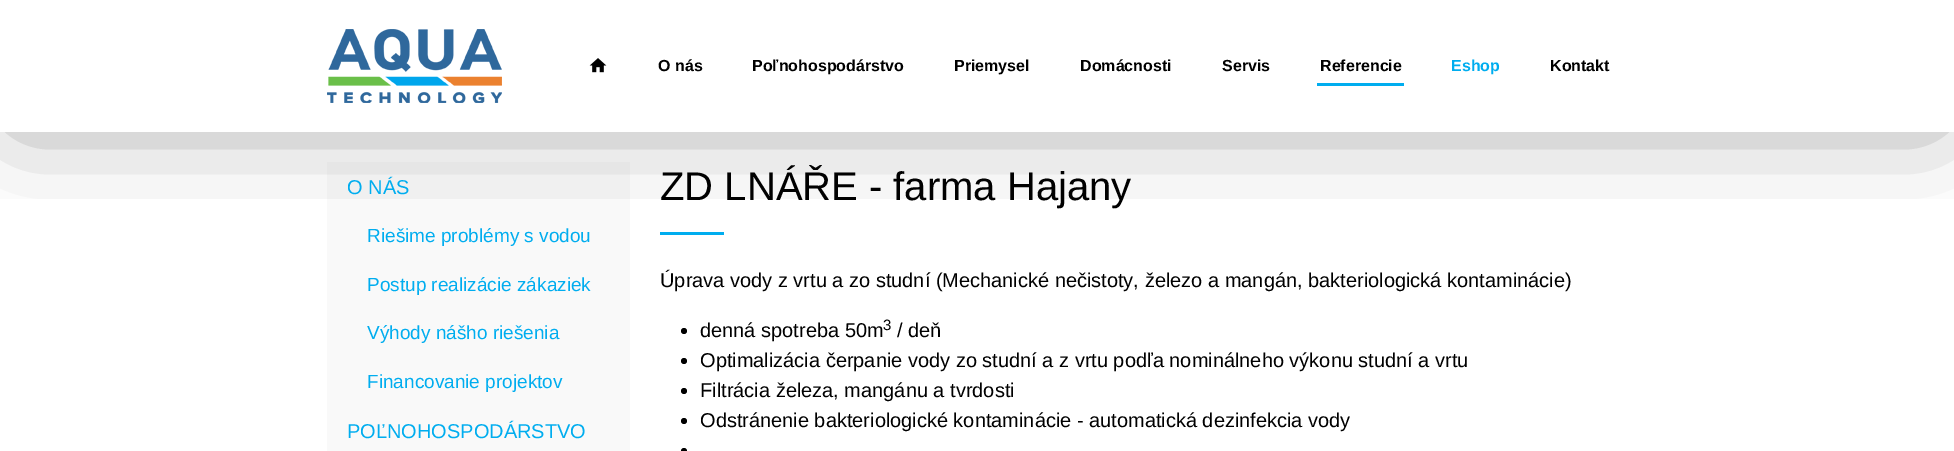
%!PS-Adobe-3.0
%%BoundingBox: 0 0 1954 451
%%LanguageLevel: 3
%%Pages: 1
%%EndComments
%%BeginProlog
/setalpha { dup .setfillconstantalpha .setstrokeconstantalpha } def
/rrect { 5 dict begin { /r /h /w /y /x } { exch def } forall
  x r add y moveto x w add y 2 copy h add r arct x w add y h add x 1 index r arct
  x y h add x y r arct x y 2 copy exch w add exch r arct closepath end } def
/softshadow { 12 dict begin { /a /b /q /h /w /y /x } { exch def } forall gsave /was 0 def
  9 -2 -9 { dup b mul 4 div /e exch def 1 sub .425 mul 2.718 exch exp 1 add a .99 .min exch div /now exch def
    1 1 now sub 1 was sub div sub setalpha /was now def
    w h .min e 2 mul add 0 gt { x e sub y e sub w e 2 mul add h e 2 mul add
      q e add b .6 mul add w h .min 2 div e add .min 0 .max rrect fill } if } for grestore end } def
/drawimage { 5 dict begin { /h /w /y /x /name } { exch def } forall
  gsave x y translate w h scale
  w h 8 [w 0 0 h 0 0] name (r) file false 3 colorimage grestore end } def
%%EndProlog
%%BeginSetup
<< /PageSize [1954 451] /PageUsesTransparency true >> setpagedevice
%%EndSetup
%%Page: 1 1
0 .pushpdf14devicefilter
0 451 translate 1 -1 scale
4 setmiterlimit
1 setgray
0 0 1954 451 rectfill
0.976 setgray
327 162 303 289 rectfill
0 0.678 0.937 setrgbcolor
660 232 64 3 rectfill
gsave
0 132 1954 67 rectclip
0 setgray
20 20 1914 92 0 50 0.5 softshadow
grestore
(images/1.raw) 327 29 175 74 drawimage
(images/2.raw) 589 58 18 15 drawimage
1317 83 87 3 rectfill
0 setgray
newpath 684 331 3 0 360 arc closepath fill
newpath 684 361 3 0 360 arc closepath fill
newpath 684 391 3 0 360 arc closepath fill
newpath 684 421 3 0 360 arc closepath fill
newpath 684 451 3 0 360 arc closepath fill
/LiberationSans-Bold [16 0 0 -16 0 0] selectfont
658 71 moveto (O nás) show
752 71 moveto (Poľnohospodárstvo) show
954 71 moveto (Priemysel) show
1080 71 moveto (Domácnosti) show
1222 71 moveto (Servis) show
1320 71 moveto (Referencie) show
0 0.678 0.937 setrgbcolor
1451 71 moveto (Eshop) show
0 setgray
1550 71 moveto (Kontakt) show
/LiberationSans-Regular [20 0 0 -20 0 0] selectfont
0 0.678 0.937 setrgbcolor
347 194 moveto (O NÁS) show
/LiberationSans-Regular [19 0 0 -19 0 0] selectfont
367 242 moveto (Riešime problémy s vodou) show
367 291 moveto (Postup realizácie zákaziek) show
367 339 moveto (Výhody nášho riešenia) show
367 388 moveto (Financovanie projektov) show
/LiberationSans-Regular [20 0 0 -20 0 0] selectfont
347 438 moveto (POĽNOHOSPODÁRSTVO) show
/LiberationSans-Regular [40 0 0 -40 0 0] selectfont
0 setgray
660 200 moveto (ZD LNÁŘE - farma Hajany) show
/LiberationSans-Regular [20 0 0 -20 0 0] selectfont
660 287 moveto (Úprava vody z vrtu a zo studní \(Mechanické nečistoty, železo a mangán, bakteriologická kontaminácie\)) show
700 337 moveto (denná spotreba 50m) show
/LiberationSans-Regular [15 0 0 -15 0 0] selectfont
883 330 moveto (3) show
/LiberationSans-Regular [20 0 0 -20 0 0] selectfont
897 337 moveto (/ deň) show
700 367 moveto (Optimalizácia čerpanie vody zo studní a z vrtu podľa nominálneho výkonu studní a vrtu) show
700 397 moveto (Filtrácia železa, mangánu a tvrdosti) show
700 427 moveto (Odstránenie bakteriologické kontaminácie - automatická dezinfekcia vody) show
.poppdf14devicefilter showpage
%%EOF
